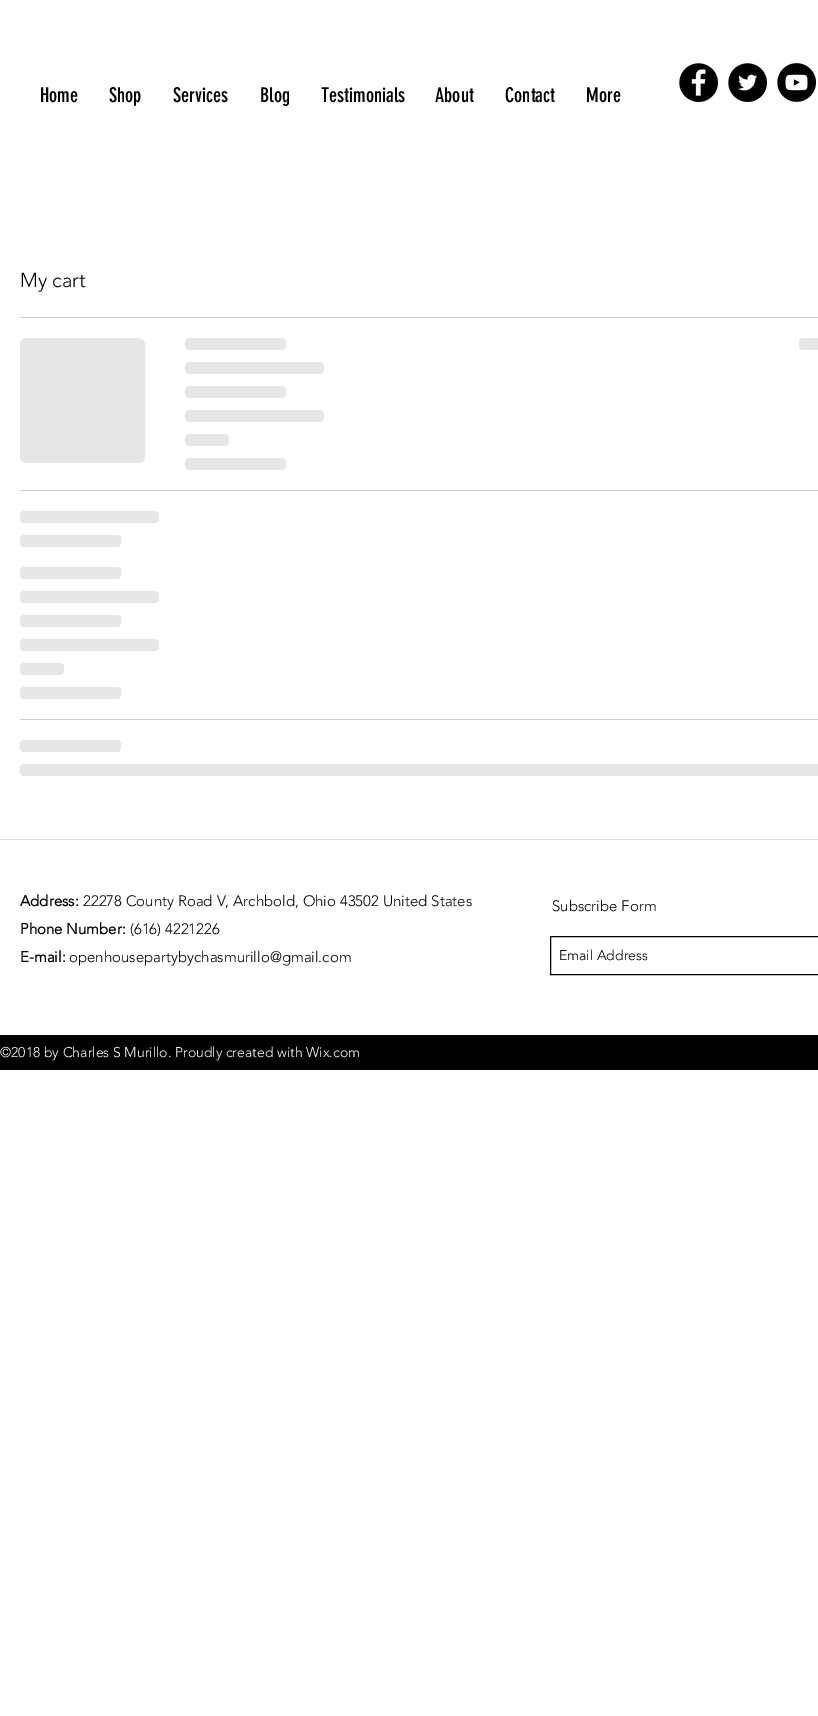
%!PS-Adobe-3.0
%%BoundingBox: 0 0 818 1716
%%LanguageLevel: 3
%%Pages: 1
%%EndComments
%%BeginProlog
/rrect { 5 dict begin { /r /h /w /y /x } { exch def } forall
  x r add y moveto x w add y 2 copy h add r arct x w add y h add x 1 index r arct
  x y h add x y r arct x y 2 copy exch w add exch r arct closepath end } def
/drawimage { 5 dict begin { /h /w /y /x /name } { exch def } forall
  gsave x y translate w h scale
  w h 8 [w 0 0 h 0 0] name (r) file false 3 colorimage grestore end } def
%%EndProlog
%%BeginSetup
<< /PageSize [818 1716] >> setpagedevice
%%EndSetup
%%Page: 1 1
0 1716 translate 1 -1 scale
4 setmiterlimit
1 setgray
0 0 818 1716 rectfill
(images/1.raw) 679 63 39 39 drawimage
(images/2.raw) 728 63 39 39 drawimage
(images/3.raw) 777 63 39 39 drawimage
0.8 setgray
20 317 798 1 rectfill
gsave 20 338 125 125 8 rrect clip newpath
<< /ShadingType 2 /ColorSpace /DeviceRGB /Coords [20 401 520 401] /Extend [true true] /Function << /FunctionType 3 /Domain [0 1] /Functions [<< /FunctionType 2 /Domain [0 1] /C0 [0.902 0.902 0.902] /C1 [0.902 0.902 0.902] /N 1 >> << /FunctionType 2 /Domain [0 1] /C0 [0.902 0.902 0.902] /C1 [0.8 0.8 0.8] /N 1 >> << /FunctionType 2 /Domain [0 1] /C0 [0.8 0.8 0.8] /C1 [0.902 0.902 0.902] /N 1 >> << /FunctionType 2 /Domain [0 1] /C0 [0.902 0.902 0.902] /C1 [0.902 0.902 0.902] /N 1 >>] /Bounds [0.25 0.37 0.63] /Encode [0 1 0 1 0 1 0 1] >> >> shfill grestore
gsave 185 338 101 12 6 rrect clip newpath
<< /ShadingType 2 /ColorSpace /DeviceRGB /Coords [185 344 589 344] /Extend [true true] /Function << /FunctionType 3 /Domain [0 1] /Functions [<< /FunctionType 2 /Domain [0 1] /C0 [0.902 0.902 0.902] /C1 [0.902 0.902 0.902] /N 1 >> << /FunctionType 2 /Domain [0 1] /C0 [0.902 0.902 0.902] /C1 [0.8 0.8 0.8] /N 1 >> << /FunctionType 2 /Domain [0 1] /C0 [0.8 0.8 0.8] /C1 [0.902 0.902 0.902] /N 1 >> << /FunctionType 2 /Domain [0 1] /C0 [0.902 0.902 0.902] /C1 [0.902 0.902 0.902] /N 1 >>] /Bounds [0.25 0.37 0.63] /Encode [0 1 0 1 0 1 0 1] >> >> shfill grestore
gsave 185 362 139 12 6 rrect clip newpath
<< /ShadingType 2 /ColorSpace /DeviceRGB /Coords [185 368 741 368] /Extend [true true] /Function << /FunctionType 3 /Domain [0 1] /Functions [<< /FunctionType 2 /Domain [0 1] /C0 [0.902 0.902 0.902] /C1 [0.902 0.902 0.902] /N 1 >> << /FunctionType 2 /Domain [0 1] /C0 [0.902 0.902 0.902] /C1 [0.8 0.8 0.8] /N 1 >> << /FunctionType 2 /Domain [0 1] /C0 [0.8 0.8 0.8] /C1 [0.902 0.902 0.902] /N 1 >> << /FunctionType 2 /Domain [0 1] /C0 [0.902 0.902 0.902] /C1 [0.902 0.902 0.902] /N 1 >>] /Bounds [0.25 0.37 0.63] /Encode [0 1 0 1 0 1 0 1] >> >> shfill grestore
gsave 185 386 101 12 6 rrect clip newpath
<< /ShadingType 2 /ColorSpace /DeviceRGB /Coords [185 392 589 392] /Extend [true true] /Function << /FunctionType 3 /Domain [0 1] /Functions [<< /FunctionType 2 /Domain [0 1] /C0 [0.902 0.902 0.902] /C1 [0.902 0.902 0.902] /N 1 >> << /FunctionType 2 /Domain [0 1] /C0 [0.902 0.902 0.902] /C1 [0.8 0.8 0.8] /N 1 >> << /FunctionType 2 /Domain [0 1] /C0 [0.8 0.8 0.8] /C1 [0.902 0.902 0.902] /N 1 >> << /FunctionType 2 /Domain [0 1] /C0 [0.902 0.902 0.902] /C1 [0.902 0.902 0.902] /N 1 >>] /Bounds [0.25 0.37 0.63] /Encode [0 1 0 1 0 1 0 1] >> >> shfill grestore
gsave 185 410 139 12 6 rrect clip newpath
<< /ShadingType 2 /ColorSpace /DeviceRGB /Coords [185 416 741 416] /Extend [true true] /Function << /FunctionType 3 /Domain [0 1] /Functions [<< /FunctionType 2 /Domain [0 1] /C0 [0.902 0.902 0.902] /C1 [0.902 0.902 0.902] /N 1 >> << /FunctionType 2 /Domain [0 1] /C0 [0.902 0.902 0.902] /C1 [0.8 0.8 0.8] /N 1 >> << /FunctionType 2 /Domain [0 1] /C0 [0.8 0.8 0.8] /C1 [0.902 0.902 0.902] /N 1 >> << /FunctionType 2 /Domain [0 1] /C0 [0.902 0.902 0.902] /C1 [0.902 0.902 0.902] /N 1 >>] /Bounds [0.25 0.37 0.63] /Encode [0 1 0 1 0 1 0 1] >> >> shfill grestore
gsave 185 434 44 12 6 rrect clip newpath
<< /ShadingType 2 /ColorSpace /DeviceRGB /Coords [185 440 361 440] /Extend [true true] /Function << /FunctionType 3 /Domain [0 1] /Functions [<< /FunctionType 2 /Domain [0 1] /C0 [0.902 0.902 0.902] /C1 [0.902 0.902 0.902] /N 1 >> << /FunctionType 2 /Domain [0 1] /C0 [0.902 0.902 0.902] /C1 [0.8 0.8 0.8] /N 1 >> << /FunctionType 2 /Domain [0 1] /C0 [0.8 0.8 0.8] /C1 [0.902 0.902 0.902] /N 1 >> << /FunctionType 2 /Domain [0 1] /C0 [0.902 0.902 0.902] /C1 [0.902 0.902 0.902] /N 1 >>] /Bounds [0.25 0.37 0.63] /Encode [0 1 0 1 0 1 0 1] >> >> shfill grestore
gsave 185 458 101 12 6 rrect clip newpath
<< /ShadingType 2 /ColorSpace /DeviceRGB /Coords [185 464 589 464] /Extend [true true] /Function << /FunctionType 3 /Domain [0 1] /Functions [<< /FunctionType 2 /Domain [0 1] /C0 [0.902 0.902 0.902] /C1 [0.902 0.902 0.902] /N 1 >> << /FunctionType 2 /Domain [0 1] /C0 [0.902 0.902 0.902] /C1 [0.8 0.8 0.8] /N 1 >> << /FunctionType 2 /Domain [0 1] /C0 [0.8 0.8 0.8] /C1 [0.902 0.902 0.902] /N 1 >> << /FunctionType 2 /Domain [0 1] /C0 [0.902 0.902 0.902] /C1 [0.902 0.902 0.902] /N 1 >>] /Bounds [0.25 0.37 0.63] /Encode [0 1 0 1 0 1 0 1] >> >> shfill grestore
gsave 799 338 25 12 6 rrect clip newpath
<< /ShadingType 2 /ColorSpace /DeviceRGB /Coords [799 344 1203 344] /Extend [true true] /Function << /FunctionType 3 /Domain [0 1] /Functions [<< /FunctionType 2 /Domain [0 1] /C0 [0.902 0.902 0.902] /C1 [0.902 0.902 0.902] /N 1 >> << /FunctionType 2 /Domain [0 1] /C0 [0.902 0.902 0.902] /C1 [0.8 0.8 0.8] /N 1 >> << /FunctionType 2 /Domain [0 1] /C0 [0.8 0.8 0.8] /C1 [0.902 0.902 0.902] /N 1 >> << /FunctionType 2 /Domain [0 1] /C0 [0.902 0.902 0.902] /C1 [0.902 0.902 0.902] /N 1 >>] /Bounds [0.25 0.37 0.63] /Encode [0 1 0 1 0 1 0 1] >> >> shfill grestore
20 490 798 1 rectfill
gsave 20 511 139 12 6 rrect clip newpath
<< /ShadingType 2 /ColorSpace /DeviceRGB /Coords [20 517 576 517] /Extend [true true] /Function << /FunctionType 3 /Domain [0 1] /Functions [<< /FunctionType 2 /Domain [0 1] /C0 [0.902 0.902 0.902] /C1 [0.902 0.902 0.902] /N 1 >> << /FunctionType 2 /Domain [0 1] /C0 [0.902 0.902 0.902] /C1 [0.8 0.8 0.8] /N 1 >> << /FunctionType 2 /Domain [0 1] /C0 [0.8 0.8 0.8] /C1 [0.902 0.902 0.902] /N 1 >> << /FunctionType 2 /Domain [0 1] /C0 [0.902 0.902 0.902] /C1 [0.902 0.902 0.902] /N 1 >>] /Bounds [0.25 0.37 0.63] /Encode [0 1 0 1 0 1 0 1] >> >> shfill grestore
gsave 20 535 101 12 6 rrect clip newpath
<< /ShadingType 2 /ColorSpace /DeviceRGB /Coords [20 541 424 541] /Extend [true true] /Function << /FunctionType 3 /Domain [0 1] /Functions [<< /FunctionType 2 /Domain [0 1] /C0 [0.902 0.902 0.902] /C1 [0.902 0.902 0.902] /N 1 >> << /FunctionType 2 /Domain [0 1] /C0 [0.902 0.902 0.902] /C1 [0.8 0.8 0.8] /N 1 >> << /FunctionType 2 /Domain [0 1] /C0 [0.8 0.8 0.8] /C1 [0.902 0.902 0.902] /N 1 >> << /FunctionType 2 /Domain [0 1] /C0 [0.902 0.902 0.902] /C1 [0.902 0.902 0.902] /N 1 >>] /Bounds [0.25 0.37 0.63] /Encode [0 1 0 1 0 1 0 1] >> >> shfill grestore
gsave 20 567 101 12 6 rrect clip newpath
<< /ShadingType 2 /ColorSpace /DeviceRGB /Coords [20 573 424 573] /Extend [true true] /Function << /FunctionType 3 /Domain [0 1] /Functions [<< /FunctionType 2 /Domain [0 1] /C0 [0.902 0.902 0.902] /C1 [0.902 0.902 0.902] /N 1 >> << /FunctionType 2 /Domain [0 1] /C0 [0.902 0.902 0.902] /C1 [0.8 0.8 0.8] /N 1 >> << /FunctionType 2 /Domain [0 1] /C0 [0.8 0.8 0.8] /C1 [0.902 0.902 0.902] /N 1 >> << /FunctionType 2 /Domain [0 1] /C0 [0.902 0.902 0.902] /C1 [0.902 0.902 0.902] /N 1 >>] /Bounds [0.25 0.37 0.63] /Encode [0 1 0 1 0 1 0 1] >> >> shfill grestore
gsave 20 591 139 12 6 rrect clip newpath
<< /ShadingType 2 /ColorSpace /DeviceRGB /Coords [20 597 576 597] /Extend [true true] /Function << /FunctionType 3 /Domain [0 1] /Functions [<< /FunctionType 2 /Domain [0 1] /C0 [0.902 0.902 0.902] /C1 [0.902 0.902 0.902] /N 1 >> << /FunctionType 2 /Domain [0 1] /C0 [0.902 0.902 0.902] /C1 [0.8 0.8 0.8] /N 1 >> << /FunctionType 2 /Domain [0 1] /C0 [0.8 0.8 0.8] /C1 [0.902 0.902 0.902] /N 1 >> << /FunctionType 2 /Domain [0 1] /C0 [0.902 0.902 0.902] /C1 [0.902 0.902 0.902] /N 1 >>] /Bounds [0.25 0.37 0.63] /Encode [0 1 0 1 0 1 0 1] >> >> shfill grestore
gsave 20 615 101 12 6 rrect clip newpath
<< /ShadingType 2 /ColorSpace /DeviceRGB /Coords [20 621 424 621] /Extend [true true] /Function << /FunctionType 3 /Domain [0 1] /Functions [<< /FunctionType 2 /Domain [0 1] /C0 [0.902 0.902 0.902] /C1 [0.902 0.902 0.902] /N 1 >> << /FunctionType 2 /Domain [0 1] /C0 [0.902 0.902 0.902] /C1 [0.8 0.8 0.8] /N 1 >> << /FunctionType 2 /Domain [0 1] /C0 [0.8 0.8 0.8] /C1 [0.902 0.902 0.902] /N 1 >> << /FunctionType 2 /Domain [0 1] /C0 [0.902 0.902 0.902] /C1 [0.902 0.902 0.902] /N 1 >>] /Bounds [0.25 0.37 0.63] /Encode [0 1 0 1 0 1 0 1] >> >> shfill grestore
gsave 20 639 139 12 6 rrect clip newpath
<< /ShadingType 2 /ColorSpace /DeviceRGB /Coords [20 645 576 645] /Extend [true true] /Function << /FunctionType 3 /Domain [0 1] /Functions [<< /FunctionType 2 /Domain [0 1] /C0 [0.902 0.902 0.902] /C1 [0.902 0.902 0.902] /N 1 >> << /FunctionType 2 /Domain [0 1] /C0 [0.902 0.902 0.902] /C1 [0.8 0.8 0.8] /N 1 >> << /FunctionType 2 /Domain [0 1] /C0 [0.8 0.8 0.8] /C1 [0.902 0.902 0.902] /N 1 >> << /FunctionType 2 /Domain [0 1] /C0 [0.902 0.902 0.902] /C1 [0.902 0.902 0.902] /N 1 >>] /Bounds [0.25 0.37 0.63] /Encode [0 1 0 1 0 1 0 1] >> >> shfill grestore
gsave 20 663 44 12 6 rrect clip newpath
<< /ShadingType 2 /ColorSpace /DeviceRGB /Coords [20 669 196 669] /Extend [true true] /Function << /FunctionType 3 /Domain [0 1] /Functions [<< /FunctionType 2 /Domain [0 1] /C0 [0.902 0.902 0.902] /C1 [0.902 0.902 0.902] /N 1 >> << /FunctionType 2 /Domain [0 1] /C0 [0.902 0.902 0.902] /C1 [0.8 0.8 0.8] /N 1 >> << /FunctionType 2 /Domain [0 1] /C0 [0.8 0.8 0.8] /C1 [0.902 0.902 0.902] /N 1 >> << /FunctionType 2 /Domain [0 1] /C0 [0.902 0.902 0.902] /C1 [0.902 0.902 0.902] /N 1 >>] /Bounds [0.25 0.37 0.63] /Encode [0 1 0 1 0 1 0 1] >> >> shfill grestore
gsave 20 687 101 12 6 rrect clip newpath
<< /ShadingType 2 /ColorSpace /DeviceRGB /Coords [20 693 424 693] /Extend [true true] /Function << /FunctionType 3 /Domain [0 1] /Functions [<< /FunctionType 2 /Domain [0 1] /C0 [0.902 0.902 0.902] /C1 [0.902 0.902 0.902] /N 1 >> << /FunctionType 2 /Domain [0 1] /C0 [0.902 0.902 0.902] /C1 [0.8 0.8 0.8] /N 1 >> << /FunctionType 2 /Domain [0 1] /C0 [0.8 0.8 0.8] /C1 [0.902 0.902 0.902] /N 1 >> << /FunctionType 2 /Domain [0 1] /C0 [0.902 0.902 0.902] /C1 [0.902 0.902 0.902] /N 1 >>] /Bounds [0.25 0.37 0.63] /Encode [0 1 0 1 0 1 0 1] >> >> shfill grestore
20 719 798 1 rectfill
gsave 20 740 101 12 6 rrect clip newpath
<< /ShadingType 2 /ColorSpace /DeviceRGB /Coords [20 746 424 746] /Extend [true true] /Function << /FunctionType 3 /Domain [0 1] /Functions [<< /FunctionType 2 /Domain [0 1] /C0 [0.902 0.902 0.902] /C1 [0.902 0.902 0.902] /N 1 >> << /FunctionType 2 /Domain [0 1] /C0 [0.902 0.902 0.902] /C1 [0.8 0.8 0.8] /N 1 >> << /FunctionType 2 /Domain [0 1] /C0 [0.8 0.8 0.8] /C1 [0.902 0.902 0.902] /N 1 >> << /FunctionType 2 /Domain [0 1] /C0 [0.902 0.902 0.902] /C1 [0.902 0.902 0.902] /N 1 >>] /Bounds [0.25 0.37 0.63] /Encode [0 1 0 1 0 1 0 1] >> >> shfill grestore
gsave 20 764 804 12 6 rrect clip newpath
<< /ShadingType 2 /ColorSpace /DeviceRGB /Coords [20 770 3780 770] /Extend [true true] /Function << /FunctionType 3 /Domain [0 1] /Functions [<< /FunctionType 2 /Domain [0 1] /C0 [0.902 0.902 0.902] /C1 [0.902 0.902 0.902] /N 1 >> << /FunctionType 2 /Domain [0 1] /C0 [0.902 0.902 0.902] /C1 [0.8 0.8 0.8] /N 1 >> << /FunctionType 2 /Domain [0 1] /C0 [0.8 0.8 0.8] /C1 [0.902 0.902 0.902] /N 1 >> << /FunctionType 2 /Domain [0 1] /C0 [0.902 0.902 0.902] /C1 [0.902 0.902 0.902] /N 1 >>] /Bounds [0.25 0.37 0.63] /Encode [0 1 0 1 0 1 0 1] >> >> shfill grestore
0.851 setgray
0 839 818 1 rectfill
0 setgray
550.5 936.5 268 38 rectstroke
0 1035 818 35 rectfill
/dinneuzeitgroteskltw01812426-Regular [20 0 0 -20 0 0] selectfont
40 102 moveto (Home) show
109 102 moveto (Shop) show
173 102 moveto (Services) show
260 102 moveto (Blog) show
321 102 moveto (Testimonials) show
435 102 moveto (About) show
505 102 moveto (Contact) show
586 102 moveto (More) show
/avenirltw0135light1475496-Light [20 0 0 -20 0 0] selectfont
20 287 moveto (My cart) show
/avenirltw0135light1475496-Bold [15 0 0 -15 0 0] selectfont
20 906 moveto (Address:) show
/avenirltw0135light1475496-Light [15 0 0 -15 0 0] selectfont
83 906 moveto (22278 County Road V, Archbold, Ohio 43502 United States) show
/avenirltw0135light1475496-Bold [15 0 0 -15 0 0] selectfont
20 934 moveto (Phone Number:) show
/avenirltw0135light1475496-Light [15 0 0 -15 0 0] selectfont
130 934 moveto (\(616\) 4221226) show
/avenirltw0135light1475496-Bold [15 0 0 -15 0 0] selectfont
20 962 moveto (E-mail:) show
/avenirltw0135light1475496-Light [15 0 0 -15 0 0] selectfont
69 962 moveto (openhousepartybychasmurillo@gmail.com) show
552 911 moveto (Subscribe Form) show
/avenirltw0135light1475496-Light [14 0 0 -14 0 0] selectfont
559 960 moveto (Email Address) show
1 setgray
0 1057 moveto (©2018 by Charles S Murillo. Proudly created with Wix.com) show
showpage
%%EOF
